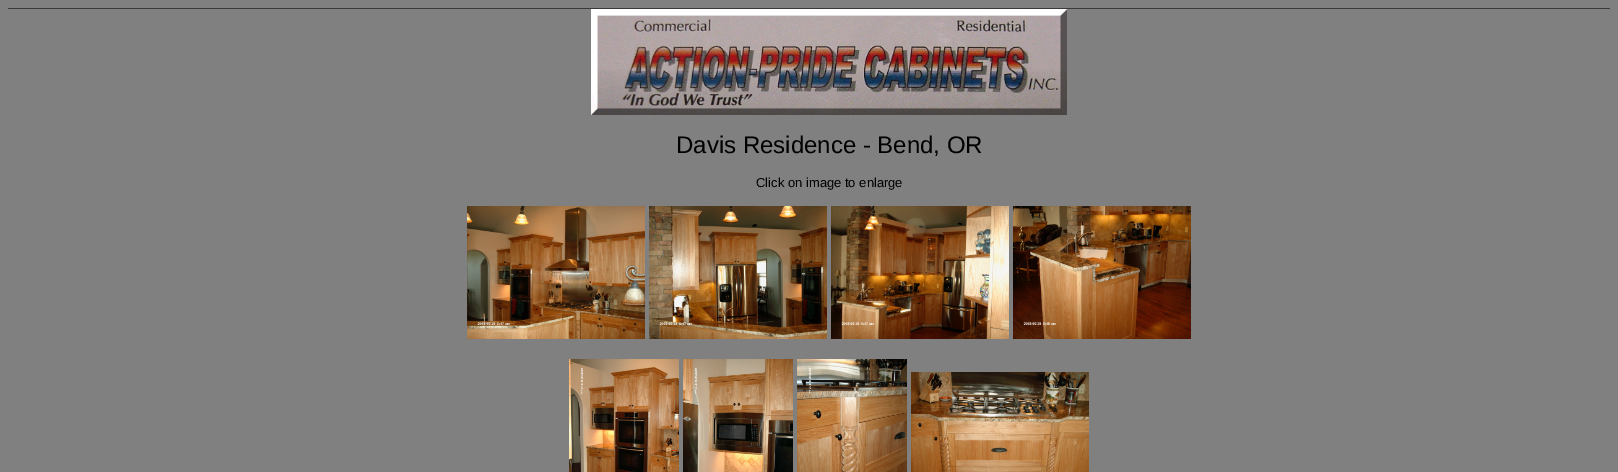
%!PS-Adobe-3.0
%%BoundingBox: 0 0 1618 472
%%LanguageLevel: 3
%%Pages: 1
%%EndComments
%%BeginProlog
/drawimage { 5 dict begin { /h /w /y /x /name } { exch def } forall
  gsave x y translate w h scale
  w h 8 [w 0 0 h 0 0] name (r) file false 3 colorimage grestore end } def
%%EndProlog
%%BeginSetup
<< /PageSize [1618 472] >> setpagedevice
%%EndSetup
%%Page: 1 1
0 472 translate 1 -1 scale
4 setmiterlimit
0.502 setgray
0 0 1618 472 rectfill
0.224 setgray
8 8 1602 1 rectfill
(images/1.raw) 591 9 476 106 drawimage
(images/2.raw) 467 206 178 133 drawimage
(images/3.raw) 649 206 178 133 drawimage
(images/4.raw) 831 206 178 133 drawimage
(images/5.raw) 1013 206 178 133 drawimage
(images/6.raw) 569 359 110 113 drawimage
(images/7.raw) 683 359 110 113 drawimage
(images/8.raw) 797 359 110 113 drawimage
(images/9.raw) 911 372 178 100 drawimage
/LiberationSans-Regular [24 0 0 -24 0 0] selectfont
0 setgray
676 153 moveto (Davis Residence - Bend, OR) show
/LiberationSans-Regular [13 0 0 -13 0 0] selectfont
756 187 moveto (Click on image to enlarge) show
showpage
%%EOF
